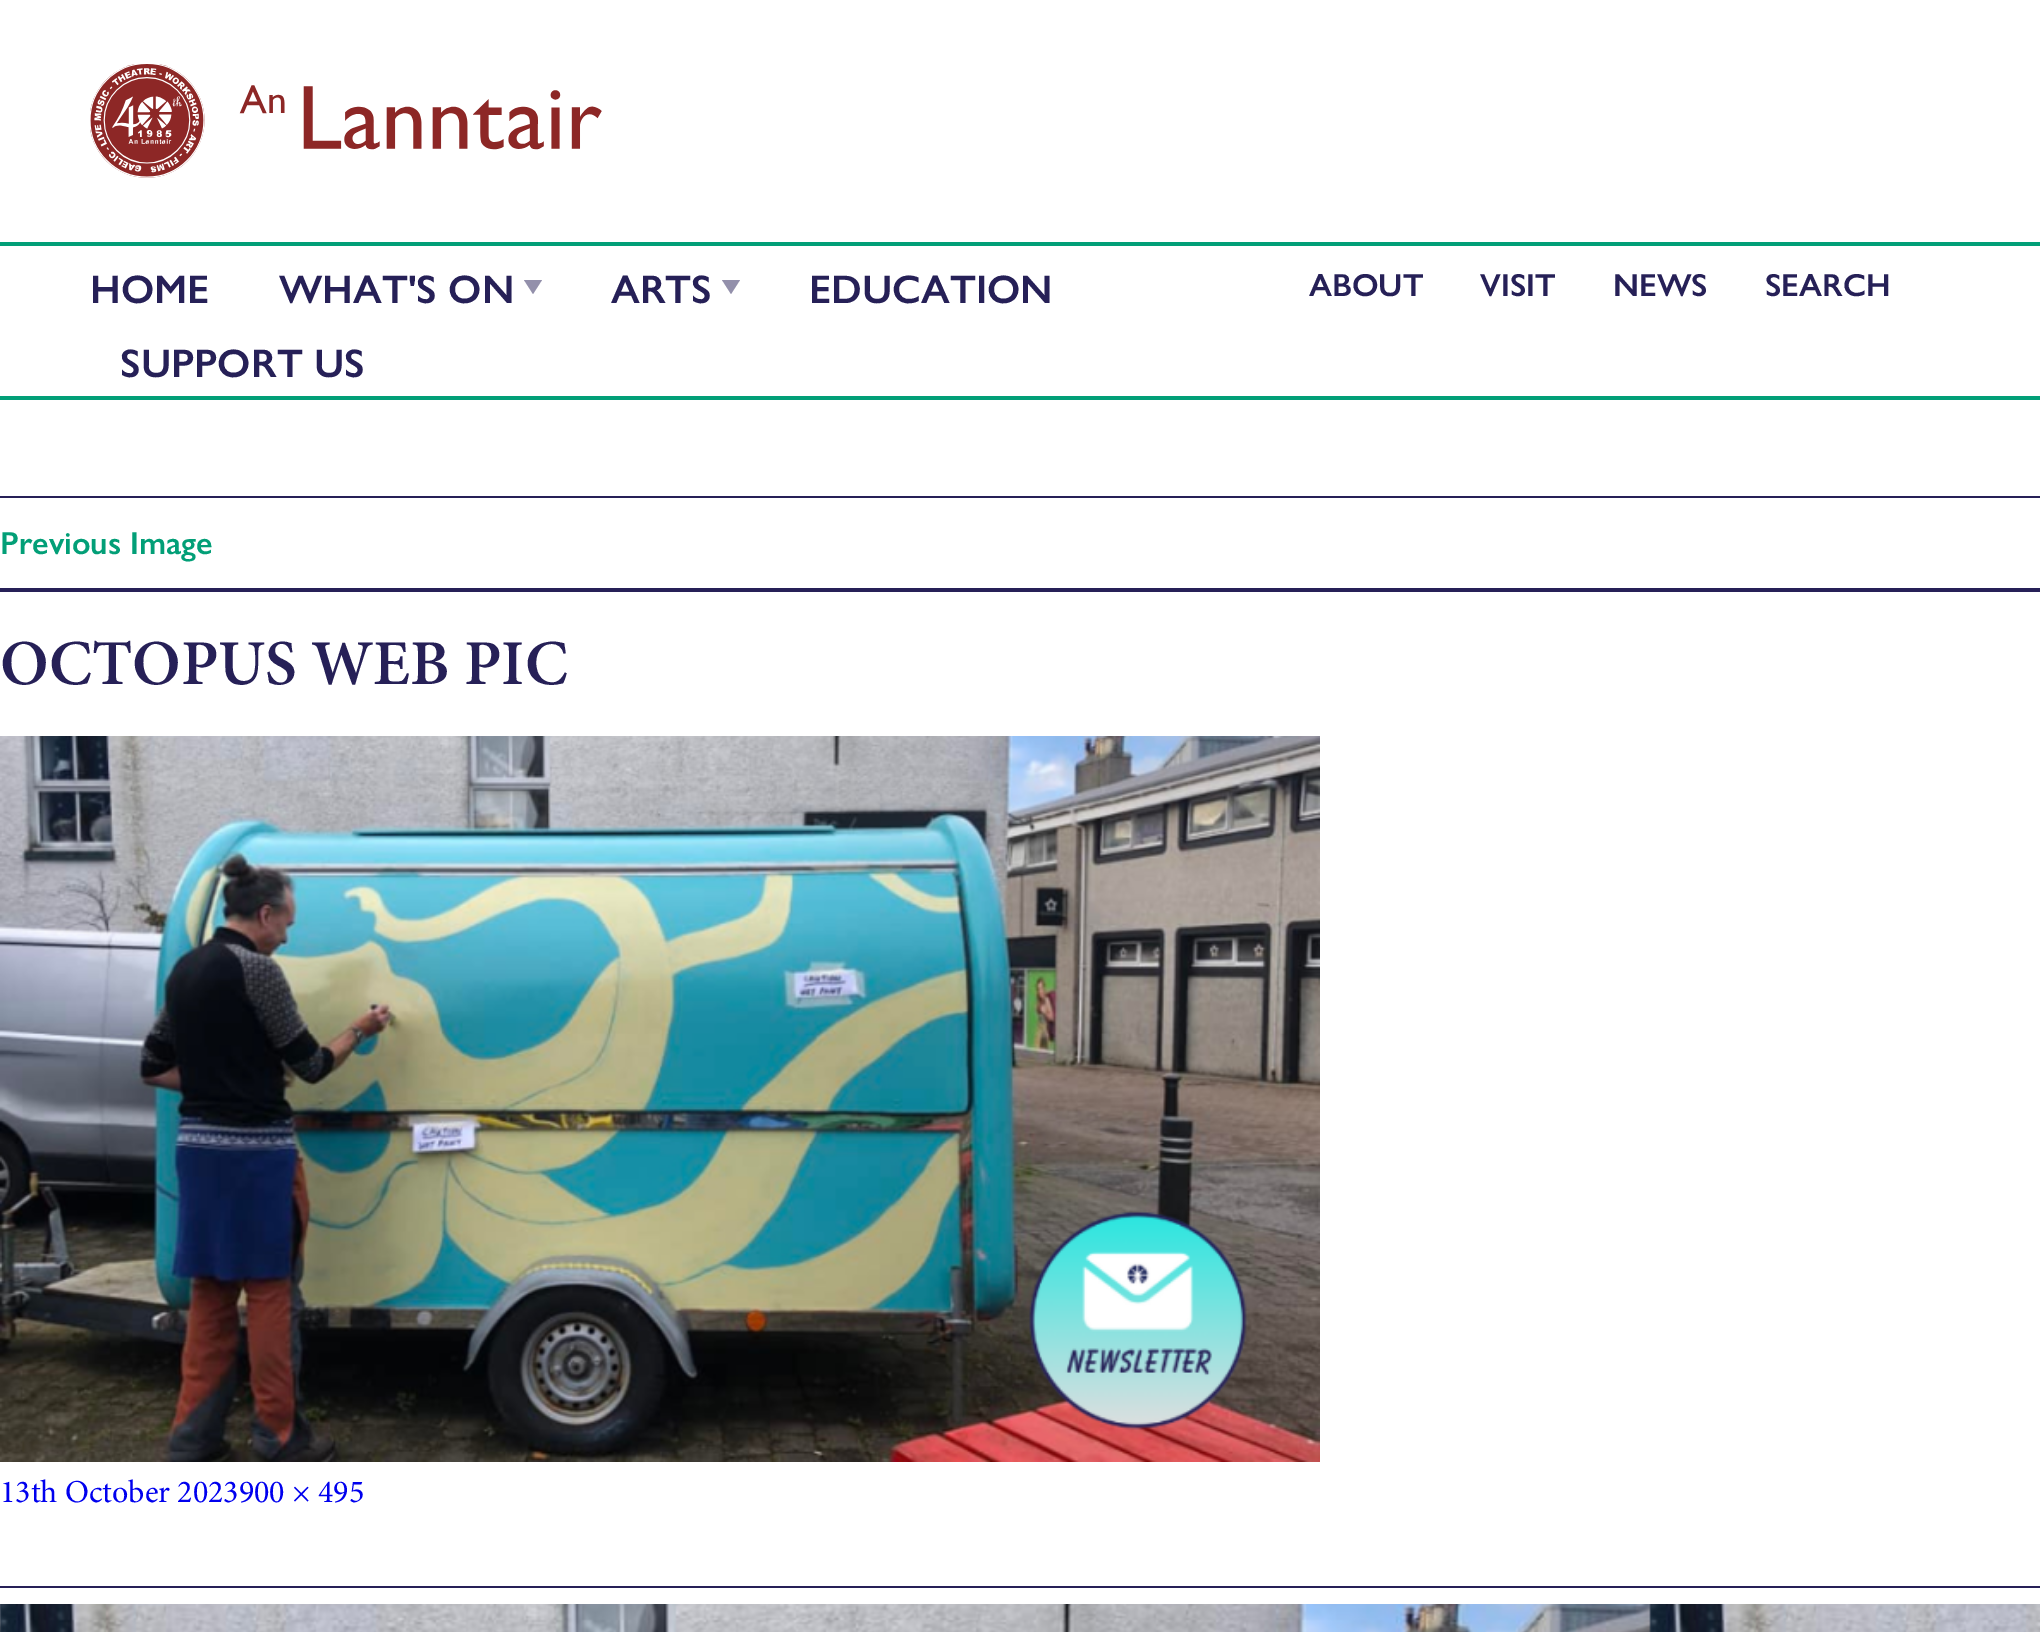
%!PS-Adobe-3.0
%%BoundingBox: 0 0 2040 1632
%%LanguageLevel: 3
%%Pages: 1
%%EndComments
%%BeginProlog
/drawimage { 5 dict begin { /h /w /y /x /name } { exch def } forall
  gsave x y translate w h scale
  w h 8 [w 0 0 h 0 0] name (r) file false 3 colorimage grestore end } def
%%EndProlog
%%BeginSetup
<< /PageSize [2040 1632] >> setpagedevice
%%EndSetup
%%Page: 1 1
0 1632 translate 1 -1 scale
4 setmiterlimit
1 setgray
0 0 2040 1632 rectfill
(images/1.raw) 90 64 512 114 drawimage
0.008 0.624 0.467 setrgbcolor
0 242 2040 4 rectfill
0 396 2040 4 rectfill
0.576 0.565 0.671 setrgbcolor
newpath 533 294 moveto 524 280 lineto 542 280 lineto closepath fill
newpath 731 294 moveto 722 280 lineto 740 280 lineto closepath fill
0.149 0.125 0.341 setrgbcolor
0 496 2040 2 rectfill
0 588 2040 4 rectfill
(images/2.raw) 0 736 1320 726 drawimage
0 1586 2040 2 rectfill
(images/3.raw) 0 1604 2040 28 drawimage
/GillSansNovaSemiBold-SemiBold [40 0 0 -40 0 0] selectfont
90 303 moveto (HOME) show
279 303 moveto (WHAT'S ON) show
611 303 moveto (ARTS) show
809 303 moveto (EDUCATION) show
120 377 moveto (SUPPORT US) show
/GillSansNovaSemiBold-SemiBold [32 0 0 -32 0 0] selectfont
1309 296 moveto (ABOUT) show
1480 296 moveto (VISIT) show
1613 296 moveto (NEWS) show
1765 296 moveto (SEARCH) show
0.008 0.624 0.467 setrgbcolor
0 554 moveto (Previous Image) show
/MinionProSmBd-SemiBold [64 0 0 -64 0 0] selectfont
0.149 0.125 0.341 setrgbcolor
0 684 moveto (OCTOPUS WEB PIC) show
/Minion-Regular [32 0 0 -32 0 0] selectfont
0 0 0.933 setrgbcolor
0 1502 moveto (13th October 2023900 × 495) show
showpage
%%EOF
